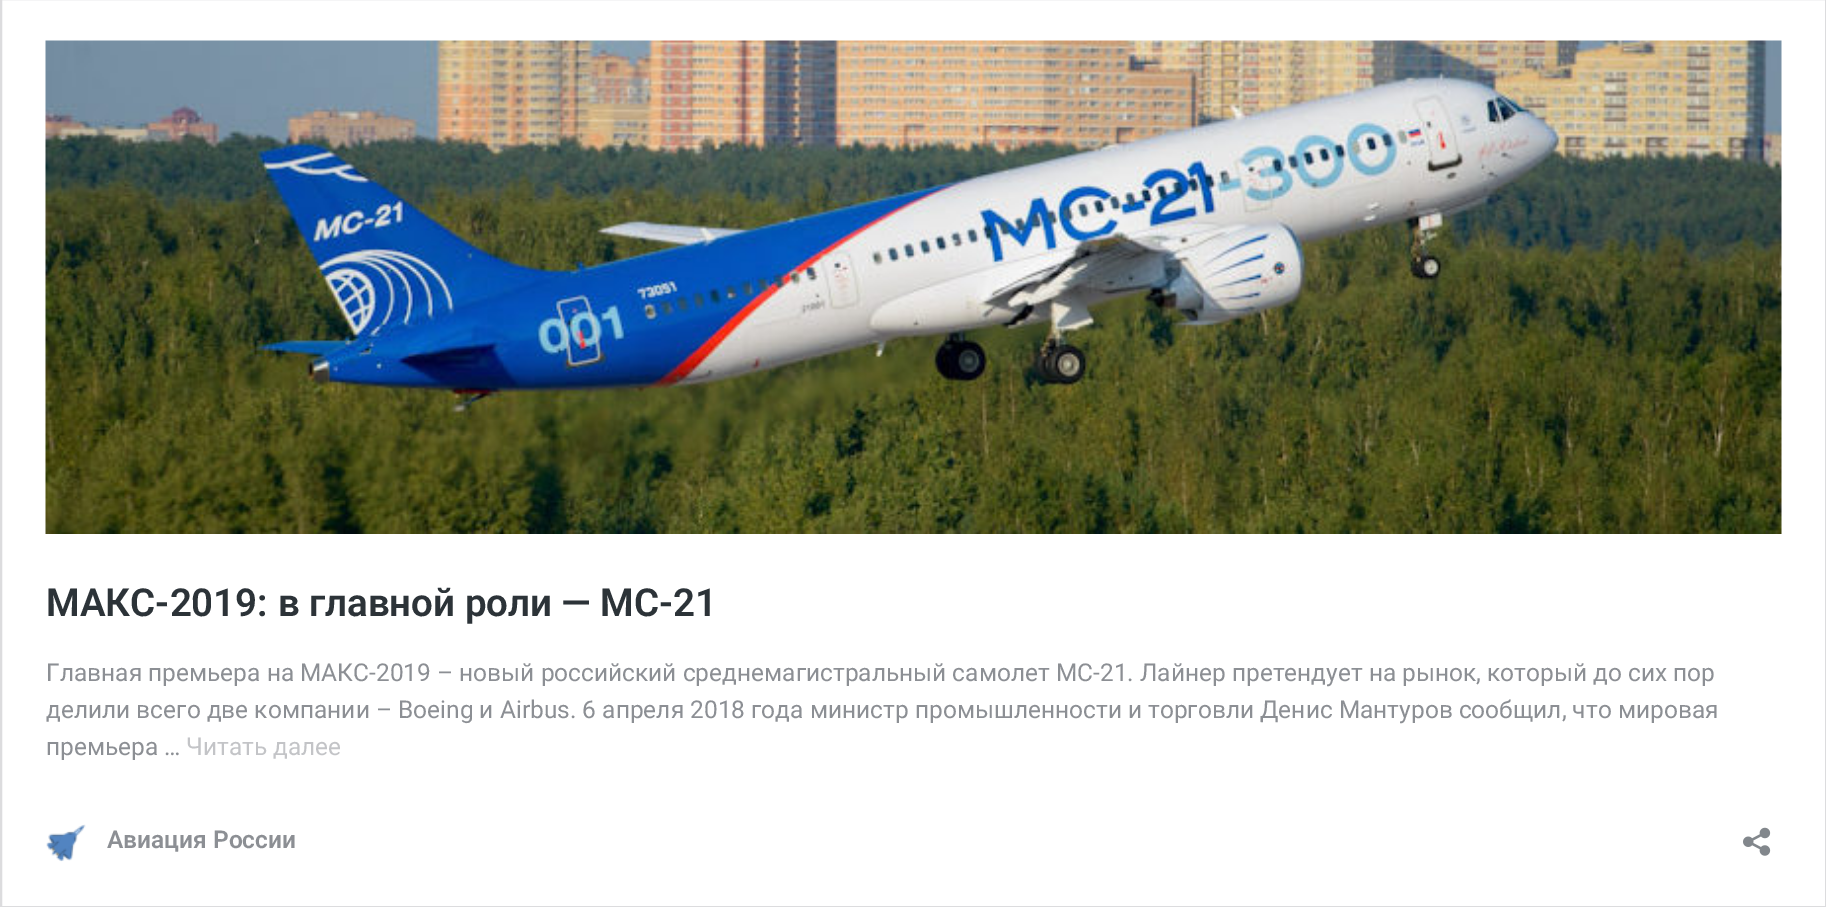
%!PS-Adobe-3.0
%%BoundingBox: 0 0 1826 907
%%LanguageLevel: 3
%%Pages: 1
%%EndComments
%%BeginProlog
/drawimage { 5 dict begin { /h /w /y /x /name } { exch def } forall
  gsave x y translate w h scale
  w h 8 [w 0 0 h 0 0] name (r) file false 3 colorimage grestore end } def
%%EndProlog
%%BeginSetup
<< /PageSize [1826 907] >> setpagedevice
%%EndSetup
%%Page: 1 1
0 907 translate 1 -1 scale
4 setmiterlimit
1 setgray
0 0 1826 907 rectfill
0.863 0.863 0.871 setrgbcolor
2 setlinewidth
1 -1 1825 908 rectstroke
(images/1.raw) 45 40 1737 494 drawimage
(images/2.raw) 46 824 40 38 drawimage
(images/3.raw) 1743 827 28 29 drawimage
/Roboto-SemiBold [38.5 0 0 -38.5 0 0] selectfont
0.173 0.2 0.22 setrgbcolor
46 616 moveto (МАКС-2019: в главной роли — МС-21) show
/Roboto-Regular [24.5 0 0 -24.5 0 0] selectfont
0.549 0.561 0.58 setrgbcolor
46 681 moveto (Главная премьера на МАКС-2019 – новый российский среднемагистральный самолет МС-21. Лайнер претендует на рынок, который до сих пор) show
46 718 moveto (делили всего две компании – Boeing и Airbus. 6 апреля 2018 года министр промышленности и торговли Денис Мантуров сообщил, что мировая) show
46 755 moveto (премьера …) show
0.765 0.769 0.78 setrgbcolor
186 755 moveto (Читать далее) show
/Roboto-SemiBold [24.5 0 0 -24.5 0 0] selectfont
0.549 0.561 0.58 setrgbcolor
107 848 moveto (Авиация России) show
showpage
%%EOF
